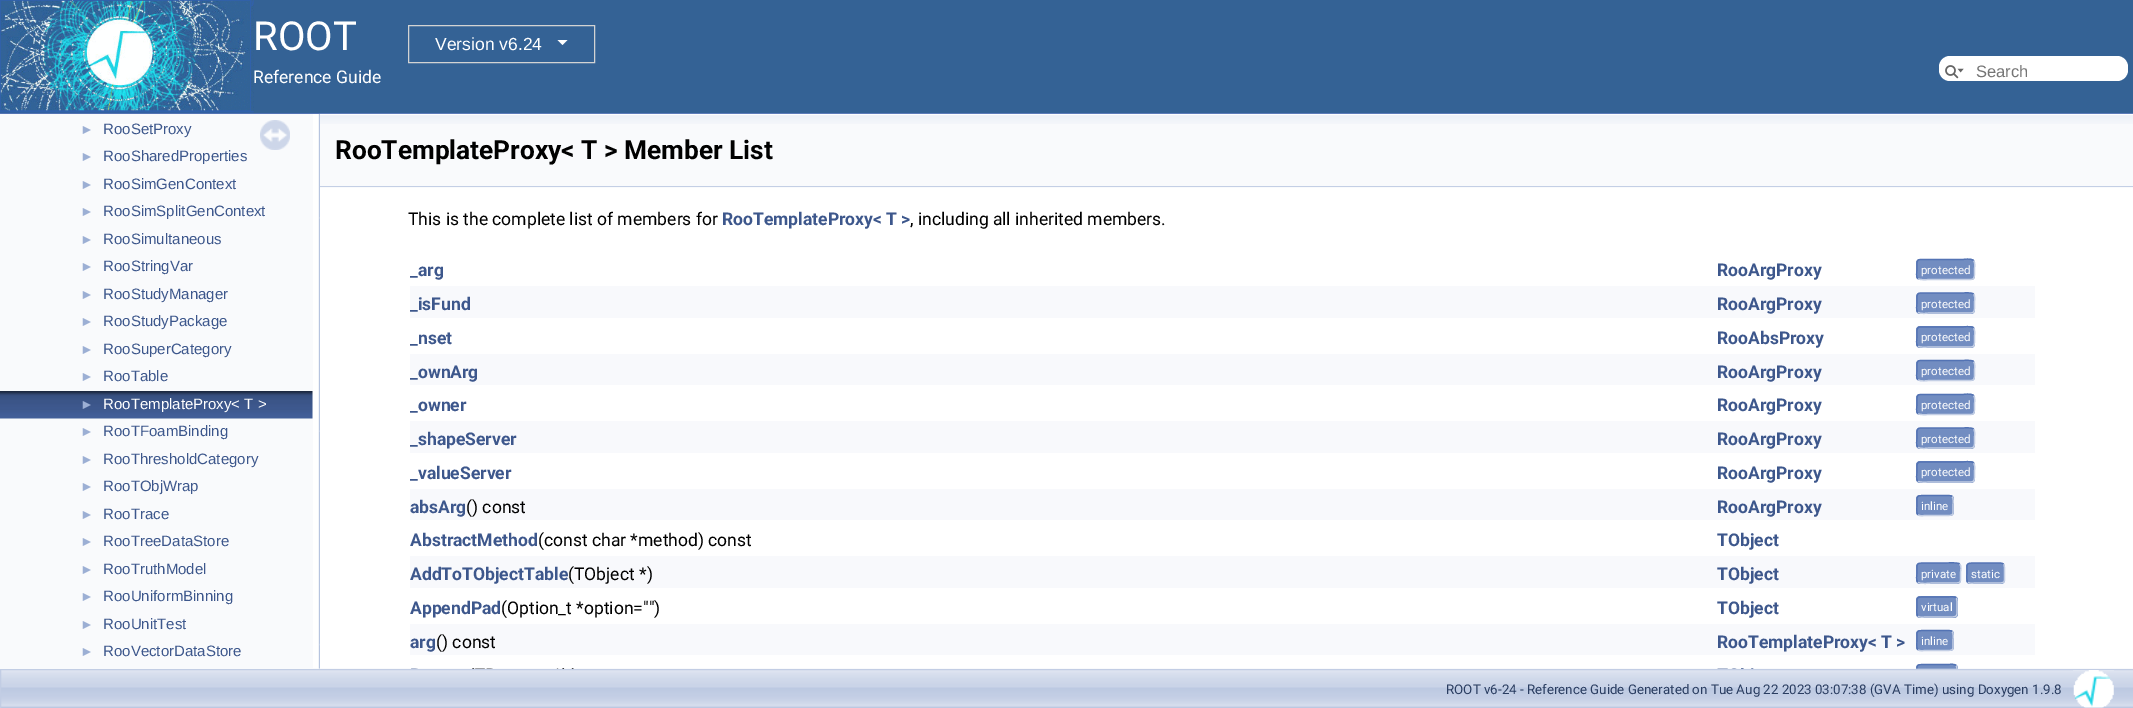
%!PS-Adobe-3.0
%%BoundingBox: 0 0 2133 708
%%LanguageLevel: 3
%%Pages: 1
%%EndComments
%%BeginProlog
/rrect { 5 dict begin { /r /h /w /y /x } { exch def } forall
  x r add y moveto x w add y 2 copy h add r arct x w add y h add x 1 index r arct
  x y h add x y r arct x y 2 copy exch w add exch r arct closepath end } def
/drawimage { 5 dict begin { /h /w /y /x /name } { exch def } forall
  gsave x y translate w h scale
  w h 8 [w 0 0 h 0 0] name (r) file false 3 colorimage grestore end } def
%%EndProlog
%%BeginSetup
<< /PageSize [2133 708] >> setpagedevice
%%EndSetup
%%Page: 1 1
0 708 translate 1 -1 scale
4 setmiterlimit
1 setgray
0 0 2133 708 rectfill
0.325 0.451 0.706 setrgbcolor
0 113 2133 1 rectfill
0.204 0.384 0.584 setrgbcolor
0 0 2133 113 rectfill
(images/1.raw) 0 0 254 113 drawimage
0.827 setgray
408.5 25.5 186 37 rectstroke
1 setgray
newpath 557.5 40 moveto 567.5 40 lineto 562.5 45 lineto closepath fill
1939 56 189 25 11 rrect fill
(images/2.raw) 1945 65 19 14 drawimage
0.447 0.553 0.757 setrgbcolor
newpath 1920 664 moveto 1954 664 lineto 1956 664 1958 666 1958 668 curveto 1958 669 lineto 1916 669 lineto 1916 668 lineto 1916 666 1918 664 1920 664 curveto closepath fill
0.769 0.812 0.898 setrgbcolor
1.2 setlinewidth
newpath 1956 665.5 moveto 1957.5 667 1957 672.5 1957 674.5 curveto 1957 684.5 1958 684.5 1948 684.5 curveto 1925.5 684.5 lineto 1924 684.5 1919.5 685.5 1918 683.5 curveto stroke
0.325 0.451 0.706 setrgbcolor
newpath 1918 683.5 moveto 1916 681.5 1917 676.5 1917 674.5 curveto 1917 664.5 1915.5 664.5 1925.5 664.5 curveto 1948 664.5 lineto 1949.5 664.5 1954 663.5 1956 665.5 curveto stroke
(images/7.raw) 1 668 2132 40 drawimage
0.976 0.98 0.988 setrgbcolor
0 114 313 555 rectfill
(images/3.raw) 0 391 313 28 drawimage
(images/4.raw) 260 120 30 30 drawimage
(images/5.raw) 318 113 2 556 drawimage
320 124 1813 64 rectfill
(images/6.raw) 320 113 1813 11 drawimage
0.769 0.812 0.898 setrgbcolor
320 186 1813 1 rectfill
0.447 0.553 0.757 setrgbcolor
1916 259 59 21 4 rrect fill
0.769 0.812 0.898 setrgbcolor
newpath 1973.5 260.5 moveto 1975.5 262.5 1974.5 267 1974.5 269.5 curveto 1974.5 281 1975 279.5 1962.5 279.5 curveto 1928.5 279.5 lineto 1928.5 279.5 1920 280.5 1918 278.5 curveto stroke
0.325 0.451 0.706 setrgbcolor
newpath 1918 278.5 moveto 1915.5 276.5 1917 272 1917 269.5 curveto 1917 258 1916 259.5 1928.5 259.5 curveto 1962.5 259.5 lineto 1963 259.5 1971 258 1973.5 260.5 curveto stroke
0.973 0.976 0.988 setrgbcolor
410 286 1625 32 rectfill
0.447 0.553 0.757 setrgbcolor
1916 293 59 21 4 rrect fill
0.769 0.812 0.898 setrgbcolor
newpath 1973.5 294 moveto 1975.5 296 1974.5 300.5 1974.5 303 curveto 1974.5 314.5 1975 313 1962.5 313 curveto 1928.5 313 lineto 1928.5 313 1920 314.5 1918 312 curveto stroke
0.325 0.451 0.706 setrgbcolor
newpath 1918 312 moveto 1915.5 310 1917 305.5 1917 303 curveto 1917 291.5 1916 293 1928.5 293 curveto 1962.5 293 lineto 1963 293 1971 292 1973.5 294 curveto stroke
0.447 0.553 0.757 setrgbcolor
1916 326 59 22 4 rrect fill
0.769 0.812 0.898 setrgbcolor
newpath 1973.5 328 moveto 1975.5 330 1974.5 334.5 1974.5 337 curveto 1974.5 348.5 1975 347 1962.5 347 curveto 1928.5 347 lineto 1928.5 347 1920 348 1918 346 curveto stroke
0.325 0.451 0.706 setrgbcolor
newpath 1918 346 moveto 1915.5 344 1917 339.5 1917 337 curveto 1917 325.5 1916 327 1928.5 327 curveto 1962.5 327 lineto 1963 327 1971 325.5 1973.5 328 curveto stroke
0.973 0.976 0.988 setrgbcolor
410 354 1625 31 rectfill
0.447 0.553 0.757 setrgbcolor
1916 360 59 21 4 rrect fill
0.769 0.812 0.898 setrgbcolor
newpath 1973.5 361.5 moveto 1975.5 363.5 1974.5 368 1974.5 370.5 curveto 1974.5 382 1975 380.5 1962.5 380.5 curveto 1928.5 380.5 lineto 1928.5 380.5 1920 382 1918 379.5 curveto stroke
0.325 0.451 0.706 setrgbcolor
newpath 1918 379.5 moveto 1915.5 377.5 1917 373 1917 370.5 curveto 1917 359 1916 360.5 1928.5 360.5 curveto 1962.5 360.5 lineto 1963 360.5 1971 359.5 1973.5 361.5 curveto stroke
0.447 0.553 0.757 setrgbcolor
1916 394 59 21 4 rrect fill
0.769 0.812 0.898 setrgbcolor
newpath 1973.5 395.5 moveto 1975.5 397.5 1974.5 402 1974.5 404.5 curveto 1974.5 416 1975 414.5 1962.5 414.5 curveto 1928.5 414.5 lineto 1928.5 414.5 1920 415.5 1918 413.5 curveto stroke
0.325 0.451 0.706 setrgbcolor
newpath 1918 413.5 moveto 1915.5 411.5 1917 407 1917 404.5 curveto 1917 393 1916 394.5 1928.5 394.5 curveto 1962.5 394.5 lineto 1963 394.5 1971 393 1973.5 395.5 curveto stroke
0.973 0.976 0.988 setrgbcolor
410 421 1625 32 rectfill
0.447 0.553 0.757 setrgbcolor
1916 428 59 21 4 rrect fill
0.769 0.812 0.898 setrgbcolor
newpath 1973.5 429 moveto 1975.5 431 1974.5 435.5 1974.5 438 curveto 1974.5 449.5 1975 448 1962.5 448 curveto 1928.5 448 lineto 1928.5 448 1920 449.5 1918 447 curveto stroke
0.325 0.451 0.706 setrgbcolor
newpath 1918 447 moveto 1915.5 445 1917 440.5 1917 438 curveto 1917 426.5 1916 428 1928.5 428 curveto 1962.5 428 lineto 1963 428 1971 427 1973.5 429 curveto stroke
0.447 0.553 0.757 setrgbcolor
1916 461 59 22 4 rrect fill
0.769 0.812 0.898 setrgbcolor
newpath 1973.5 463 moveto 1975.5 465 1974.5 469.5 1974.5 472 curveto 1974.5 483.5 1975 482 1962.5 482 curveto 1928.5 482 lineto 1928.5 482 1920 483 1918 481 curveto stroke
0.325 0.451 0.706 setrgbcolor
newpath 1918 481 moveto 1915.5 479 1917 474.5 1917 472 curveto 1917 460.5 1916 462 1928.5 462 curveto 1962.5 462 lineto 1963 462 1971 460.5 1973.5 463 curveto stroke
0.973 0.976 0.988 setrgbcolor
410 489 1625 31 rectfill
0.447 0.553 0.757 setrgbcolor
1916 495 38 21 4 rrect fill
0.769 0.812 0.898 setrgbcolor
newpath 1952 496.5 moveto 1954 498.5 1953 503.5 1953 505.5 curveto 1953 515.5 1954.5 515.5 1945 515.5 curveto 1925 515.5 lineto 1923.5 515.5 1919.5 516.5 1918 514.5 curveto stroke
0.325 0.451 0.706 setrgbcolor
newpath 1918 514.5 moveto 1916 513 1917 507.5 1917 505.5 curveto 1917 496 1915.5 495.5 1925 495.5 curveto 1945 495.5 lineto 1946.5 495.5 1950.5 495 1952 496.5 curveto stroke
0.973 0.976 0.988 setrgbcolor
410 556 1625 32 rectfill
0.447 0.553 0.757 setrgbcolor
1916 563 45 21 4 rrect fill
0.769 0.812 0.898 setrgbcolor
newpath 1959.5 564 moveto 1962 566 1960.5 570.5 1960.5 573 curveto 1960.5 583.5 1962 583 1951 583 curveto 1932.5 583 lineto 1930 583 1920 584.5 1918 582 curveto stroke
0.325 0.451 0.706 setrgbcolor
newpath 1918 582 moveto 1915.5 580 1917 575.5 1917 573 curveto 1917 563 1915.5 563 1926 563 curveto 1945 563 lineto 1947.5 563 1957.5 562 1959.5 564 curveto stroke
0.447 0.553 0.757 setrgbcolor
1966 563 39 21 4 rrect fill
0.769 0.812 0.898 setrgbcolor
newpath 2003.5 564 moveto 2005 566 2004.5 571 2004.5 573 curveto 2004.5 583 2006 583 1996 583 curveto 1975 583 lineto 1973.5 583 1969.5 584 1968 582 curveto stroke
0.325 0.451 0.706 setrgbcolor
newpath 1968 582 moveto 1966 580.5 1967 575 1967 573 curveto 1967 563.5 1965.5 563 1975 563 curveto 1996 563 lineto 1997.5 563 2001.5 562.5 2003.5 564 curveto stroke
0.447 0.553 0.757 setrgbcolor
1916 596 42 22 4 rrect fill
0.769 0.812 0.898 setrgbcolor
newpath 1956 598 moveto 1957.5 599.5 1957 605 1957 607 curveto 1957 617 1958 617 1948 617 curveto 1925.5 617 lineto 1924 617 1919.5 618 1918 616 curveto stroke
0.325 0.451 0.706 setrgbcolor
newpath 1918 616 moveto 1916 614 1917 609 1917 607 curveto 1917 597 1915.5 597 1925.5 597 curveto 1948 597 lineto 1949.5 597 1954 596 1956 598 curveto stroke
0.973 0.976 0.988 setrgbcolor
410 624 1625 31 rectfill
0.447 0.553 0.757 setrgbcolor
1916 630 38 21 4 rrect fill
0.769 0.812 0.898 setrgbcolor
newpath 1952 631.5 moveto 1954 633.5 1953 638.5 1953 640.5 curveto 1953 650.5 1954.5 650.5 1945 650.5 curveto 1925 650.5 lineto 1923.5 650.5 1919.5 651.5 1918 649.5 curveto stroke
0.325 0.451 0.706 setrgbcolor
newpath 1918 649.5 moveto 1916 648 1917 642.5 1917 640.5 curveto 1917 631 1915.5 630.5 1925 630.5 curveto 1945 630.5 lineto 1946.5 630.5 1950.5 630 1952 631.5 curveto stroke
0.761 0.804 0.894 setrgbcolor
1 setlinewidth
0.5 669.5 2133 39 rectstroke
(images/8.raw) 2073 670 41 38 drawimage
/Roboto-Regular [40 0 0 -40 0 0] selectfont
1 setgray
253 50 moveto (ROOT) show
/LiberationSans-Regular [17.5 0 0 -17.5 0 0] selectfont
435 50 moveto (Version v6.24) show
/Roboto-Regular [17.5 0 0 -17.5 0 0] selectfont
253 83 moveto (Reference Guide) show
/LiberationSans-Regular [16.5 0 0 -16.5 0 0] selectfont
0.459 setgray
1976 77 moveto (Search) show
/LiberationSans-Regular [14 0 0 -14 0 0] selectfont
0.612 0.686 0.831 setrgbcolor
80 134 moveto (►) show
/LiberationSans-Regular [15 0 0 -15 0 0] selectfont
0.239 0.341 0.549 setrgbcolor
103 134 moveto (RooSetProxy) show
/LiberationSans-Regular [14 0 0 -14 0 0] selectfont
0.612 0.686 0.831 setrgbcolor
80 161 moveto (►) show
/LiberationSans-Regular [15 0 0 -15 0 0] selectfont
0.239 0.341 0.549 setrgbcolor
103 161 moveto (RooSharedProperties) show
/LiberationSans-Regular [14 0 0 -14 0 0] selectfont
0.612 0.686 0.831 setrgbcolor
80 189 moveto (►) show
/LiberationSans-Regular [15 0 0 -15 0 0] selectfont
0.239 0.341 0.549 setrgbcolor
103 189 moveto (RooSimGenContext) show
/LiberationSans-Regular [14 0 0 -14 0 0] selectfont
0.612 0.686 0.831 setrgbcolor
80 216 moveto (►) show
/LiberationSans-Regular [15 0 0 -15 0 0] selectfont
0.239 0.341 0.549 setrgbcolor
103 216 moveto (RooSimSplitGenContext) show
/LiberationSans-Regular [14 0 0 -14 0 0] selectfont
0.612 0.686 0.831 setrgbcolor
80 244 moveto (►) show
/LiberationSans-Regular [15 0 0 -15 0 0] selectfont
0.239 0.341 0.549 setrgbcolor
103 244 moveto (RooSimultaneous) show
/LiberationSans-Regular [14 0 0 -14 0 0] selectfont
0.612 0.686 0.831 setrgbcolor
80 271 moveto (►) show
/LiberationSans-Regular [15 0 0 -15 0 0] selectfont
0.239 0.341 0.549 setrgbcolor
103 271 moveto (RooStringVar) show
/LiberationSans-Regular [14 0 0 -14 0 0] selectfont
0.612 0.686 0.831 setrgbcolor
80 299 moveto (►) show
/LiberationSans-Regular [15 0 0 -15 0 0] selectfont
0.239 0.341 0.549 setrgbcolor
103 299 moveto (RooStudyManager) show
/LiberationSans-Regular [14 0 0 -14 0 0] selectfont
0.612 0.686 0.831 setrgbcolor
80 326 moveto (►) show
/LiberationSans-Regular [15 0 0 -15 0 0] selectfont
0.239 0.341 0.549 setrgbcolor
103 326 moveto (RooStudyPackage) show
/LiberationSans-Regular [14 0 0 -14 0 0] selectfont
0.612 0.686 0.831 setrgbcolor
80 354 moveto (►) show
/LiberationSans-Regular [15 0 0 -15 0 0] selectfont
0.239 0.341 0.549 setrgbcolor
103 354 moveto (RooSuperCategory) show
/LiberationSans-Regular [14 0 0 -14 0 0] selectfont
0.612 0.686 0.831 setrgbcolor
80 381 moveto (►) show
/LiberationSans-Regular [15 0 0 -15 0 0] selectfont
0.239 0.341 0.549 setrgbcolor
103 381 moveto (RooTable) show
/LiberationSans-Regular [14 0 0 -14 0 0] selectfont
0.612 0.686 0.831 setrgbcolor
80 409 moveto (►) show
/LiberationSans-Regular [15 0 0 -15 0 0] selectfont
1 setgray
103 409 moveto (RooTemplateProxy< T >) show
/LiberationSans-Regular [14 0 0 -14 0 0] selectfont
0.612 0.686 0.831 setrgbcolor
80 436 moveto (►) show
/LiberationSans-Regular [15 0 0 -15 0 0] selectfont
0.239 0.341 0.549 setrgbcolor
103 436 moveto (RooTFoamBinding) show
/LiberationSans-Regular [14 0 0 -14 0 0] selectfont
0.612 0.686 0.831 setrgbcolor
80 464 moveto (►) show
/LiberationSans-Regular [15 0 0 -15 0 0] selectfont
0.239 0.341 0.549 setrgbcolor
103 464 moveto (RooThresholdCategory) show
/LiberationSans-Regular [14 0 0 -14 0 0] selectfont
0.612 0.686 0.831 setrgbcolor
80 491 moveto (►) show
/LiberationSans-Regular [15 0 0 -15 0 0] selectfont
0.239 0.341 0.549 setrgbcolor
103 491 moveto (RooTObjWrap) show
/LiberationSans-Regular [14 0 0 -14 0 0] selectfont
0.612 0.686 0.831 setrgbcolor
80 519 moveto (►) show
/LiberationSans-Regular [15 0 0 -15 0 0] selectfont
0.239 0.341 0.549 setrgbcolor
103 519 moveto (RooTrace) show
/LiberationSans-Regular [14 0 0 -14 0 0] selectfont
0.612 0.686 0.831 setrgbcolor
80 546 moveto (►) show
/LiberationSans-Regular [15 0 0 -15 0 0] selectfont
0.239 0.341 0.549 setrgbcolor
103 546 moveto (RooTreeDataStore) show
/LiberationSans-Regular [14 0 0 -14 0 0] selectfont
0.612 0.686 0.831 setrgbcolor
80 574 moveto (►) show
/LiberationSans-Regular [15 0 0 -15 0 0] selectfont
0.239 0.341 0.549 setrgbcolor
103 574 moveto (RooTruthModel) show
/LiberationSans-Regular [14 0 0 -14 0 0] selectfont
0.612 0.686 0.831 setrgbcolor
80 601 moveto (►) show
/LiberationSans-Regular [15 0 0 -15 0 0] selectfont
0.239 0.341 0.549 setrgbcolor
103 601 moveto (RooUniformBinning) show
/LiberationSans-Regular [14 0 0 -14 0 0] selectfont
0.612 0.686 0.831 setrgbcolor
80 629 moveto (►) show
/LiberationSans-Regular [15 0 0 -15 0 0] selectfont
0.239 0.341 0.549 setrgbcolor
103 629 moveto (RooUnitTest) show
/LiberationSans-Regular [14 0 0 -14 0 0] selectfont
0.612 0.686 0.831 setrgbcolor
80 656 moveto (►) show
/LiberationSans-Regular [15 0 0 -15 0 0] selectfont
0.239 0.341 0.549 setrgbcolor
103 656 moveto (RooVectorDataStore) show
/Roboto-Bold [26.25 0 0 -26.25 0 0] selectfont
0 setgray
335 159 moveto (RooTemplateProxy< T > Member List) show
/Roboto-Regular [17.5 0 0 -17.5 0 0] selectfont
408 225 moveto (This is the complete list of members for) show
/Roboto-Bold [17.5 0 0 -17.5 0 0] selectfont
0.239 0.341 0.549 setrgbcolor
722 225 moveto (RooTemplateProxy< T >) show
/Roboto-Regular [17.5 0 0 -17.5 0 0] selectfont
0 setgray
910 225 moveto (, including all inherited members.) show
/Roboto-Bold [17.5 0 0 -17.5 0 0] selectfont
0.239 0.341 0.549 setrgbcolor
410 276 moveto (_arg) show
1717 276 moveto (RooArgProxy) show
/Roboto-Regular [11.5 0 0 -11.5 0 0] selectfont
1 setgray
1921 274 moveto (protected) show
/Roboto-Bold [17.5 0 0 -17.5 0 0] selectfont
0.239 0.341 0.549 setrgbcolor
410 310 moveto (_isFund) show
1717 310 moveto (RooArgProxy) show
/Roboto-Regular [11.5 0 0 -11.5 0 0] selectfont
1 setgray
1921 308 moveto (protected) show
/Roboto-Bold [17.5 0 0 -17.5 0 0] selectfont
0.239 0.341 0.549 setrgbcolor
410 344 moveto (_nset) show
1717 344 moveto (RooAbsProxy) show
/Roboto-Regular [11.5 0 0 -11.5 0 0] selectfont
1 setgray
1921 341 moveto (protected) show
/Roboto-Bold [17.5 0 0 -17.5 0 0] selectfont
0.239 0.341 0.549 setrgbcolor
410 378 moveto (_ownArg) show
1717 378 moveto (RooArgProxy) show
/Roboto-Regular [11.5 0 0 -11.5 0 0] selectfont
1 setgray
1921 375 moveto (protected) show
/Roboto-Bold [17.5 0 0 -17.5 0 0] selectfont
0.239 0.341 0.549 setrgbcolor
410 411 moveto (_owner) show
1717 411 moveto (RooArgProxy) show
/Roboto-Regular [11.5 0 0 -11.5 0 0] selectfont
1 setgray
1921 409 moveto (protected) show
/Roboto-Bold [17.5 0 0 -17.5 0 0] selectfont
0.239 0.341 0.549 setrgbcolor
410 445 moveto (_shapeServer) show
1717 445 moveto (RooArgProxy) show
/Roboto-Regular [11.5 0 0 -11.5 0 0] selectfont
1 setgray
1921 443 moveto (protected) show
/Roboto-Bold [17.5 0 0 -17.5 0 0] selectfont
0.239 0.341 0.549 setrgbcolor
410 479 moveto (_valueServer) show
1717 479 moveto (RooArgProxy) show
/Roboto-Regular [11.5 0 0 -11.5 0 0] selectfont
1 setgray
1921 476 moveto (protected) show
/Roboto-Bold [17.5 0 0 -17.5 0 0] selectfont
0.239 0.341 0.549 setrgbcolor
410 513 moveto (absArg) show
/Roboto-Regular [17.5 0 0 -17.5 0 0] selectfont
0 setgray
466 513 moveto (\(\) const) show
/Roboto-Bold [17.5 0 0 -17.5 0 0] selectfont
0.239 0.341 0.549 setrgbcolor
1717 513 moveto (RooArgProxy) show
/Roboto-Regular [11.5 0 0 -11.5 0 0] selectfont
1 setgray
1921 510 moveto (inline) show
/Roboto-Bold [17.5 0 0 -17.5 0 0] selectfont
0.239 0.341 0.549 setrgbcolor
410 546 moveto (AbstractMethod) show
/Roboto-Regular [17.5 0 0 -17.5 0 0] selectfont
0 setgray
538 546 moveto (\(const char *method\) const) show
/Roboto-Bold [17.5 0 0 -17.5 0 0] selectfont
0.239 0.341 0.549 setrgbcolor
1717 546 moveto (TObject) show
410 580 moveto (AddToTObjectTable) show
/Roboto-Regular [17.5 0 0 -17.5 0 0] selectfont
0 setgray
568 580 moveto (\(TObject *\)) show
/Roboto-Bold [17.5 0 0 -17.5 0 0] selectfont
0.239 0.341 0.549 setrgbcolor
1717 580 moveto (TObject) show
/Roboto-Regular [11.5 0 0 -11.5 0 0] selectfont
1 setgray
1921 578 moveto (private) show
1971 578 moveto (static) show
/Roboto-Bold [17.5 0 0 -17.5 0 0] selectfont
0.239 0.341 0.549 setrgbcolor
410 614 moveto (AppendPad) show
/Roboto-Regular [17.5 0 0 -17.5 0 0] selectfont
0 setgray
501 614 moveto (\(Option_t *option=""\)) show
/Roboto-Bold [17.5 0 0 -17.5 0 0] selectfont
0.239 0.341 0.549 setrgbcolor
1717 614 moveto (TObject) show
/Roboto-Regular [11.5 0 0 -11.5 0 0] selectfont
1 setgray
1921 611 moveto (virtual) show
/Roboto-Bold [17.5 0 0 -17.5 0 0] selectfont
0.239 0.341 0.549 setrgbcolor
410 648 moveto (arg) show
/Roboto-Regular [17.5 0 0 -17.5 0 0] selectfont
0 setgray
436 648 moveto (\(\) const) show
/Roboto-Bold [17.5 0 0 -17.5 0 0] selectfont
0.239 0.341 0.549 setrgbcolor
1717 648 moveto (RooTemplateProxy< T >) show
/Roboto-Regular [11.5 0 0 -11.5 0 0] selectfont
1 setgray
1921 645 moveto (inline) show
/Roboto-Regular [13.35 0 0 -13.35 0 0] selectfont
0.165 0.239 0.38 setrgbcolor
1446 694 moveto (ROOT v6-24 - Reference Guide Generated on Tue Aug 22 2023 03:07:38 \(GVA Time\) using Doxygen 1.9.8) show
showpage
%%EOF
